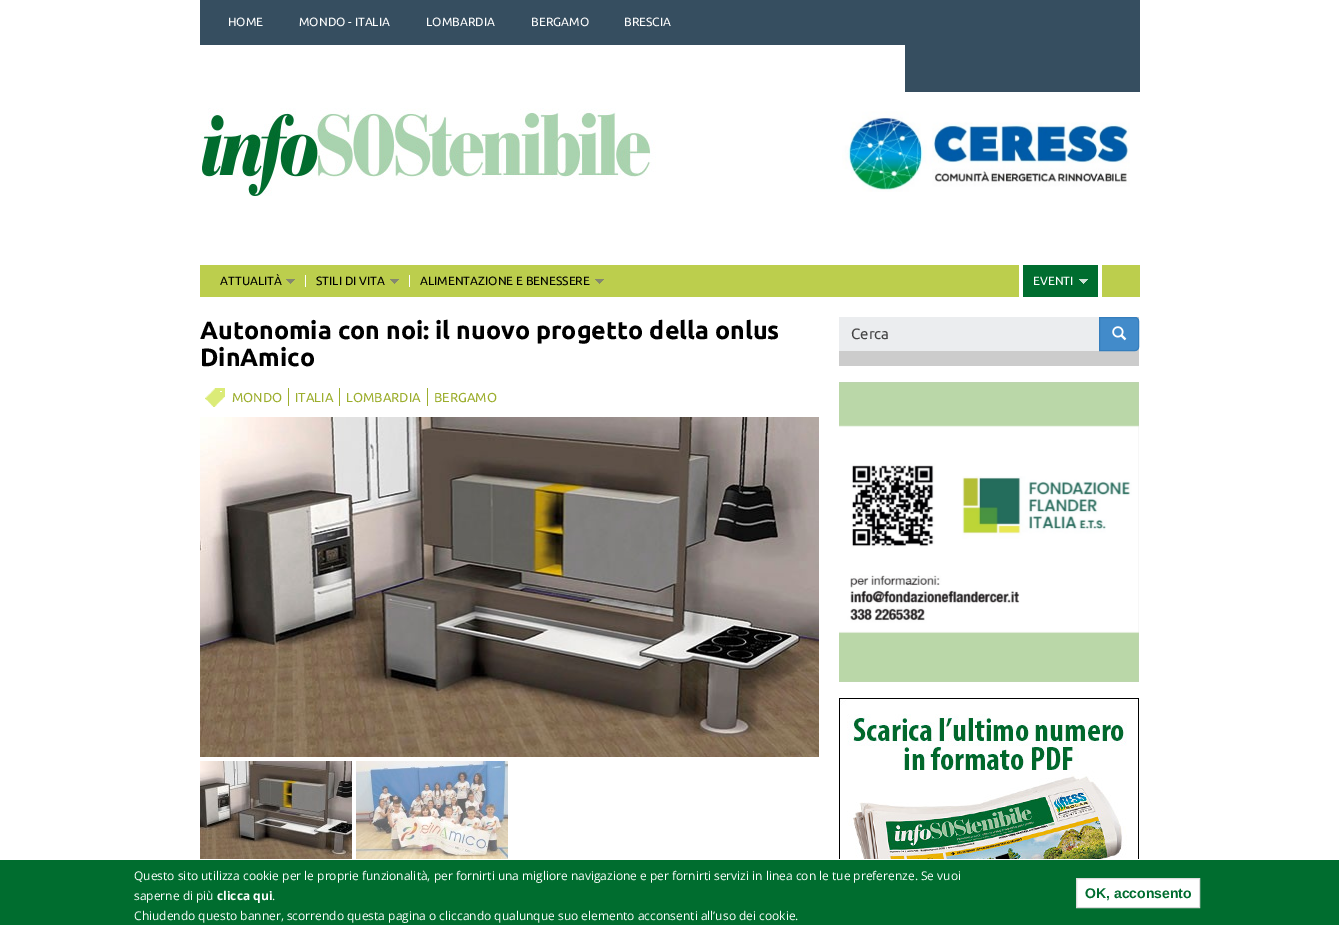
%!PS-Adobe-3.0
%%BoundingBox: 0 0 1339 925
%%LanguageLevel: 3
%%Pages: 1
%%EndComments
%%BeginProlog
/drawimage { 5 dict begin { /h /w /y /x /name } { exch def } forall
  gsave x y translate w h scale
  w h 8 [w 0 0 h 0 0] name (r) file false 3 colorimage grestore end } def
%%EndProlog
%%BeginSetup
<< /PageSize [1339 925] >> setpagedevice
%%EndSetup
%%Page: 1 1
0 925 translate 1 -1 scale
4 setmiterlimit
1 setgray
0 0 1339 925 rectfill
0.212 0.306 0.376 setrgbcolor
200 0 705 45 rectfill
905 0 235 92 rectfill
(images/1.raw) 200 108 456 88 drawimage
(images/2.raw) 842 111 288 81 drawimage
0.737 0.808 0.302 setrgbcolor
200 265 940 32 rectfill
(images/3.raw) 286 279 9 5 drawimage
1 setgray
305 275 1 12 rectfill
(images/3.raw) 390 279 9 5 drawimage
409 275 1 12 rectfill
(images/3.raw) 595 279 9 5 drawimage
0 0.427 0.184 setrgbcolor
1023 265 75 32 rectfill
1 setgray
1098 265 4 32 rectfill
1019 265 4 32 rectfill
(images/4.raw) 1079 279 9 5 drawimage
(images/5.raw) 205 388 20 19 drawimage
0.612 0.682 0.176 setrgbcolor
288 388 1 18 rectfill
339 388 1 18 rectfill
427 388 1 18 rectfill
(images/6.raw) 200 417 619 340 drawimage
(images/7.raw) 200 761 152 98 drawimage
(images/8.raw) 356 761 152 98 drawimage
0.8 setgray
839 317 300 49 rectfill
0.922 0.929 0.937 setrgbcolor
839 317 260 34 rectfill
0.259 0.545 0.792 setrgbcolor
newpath 1099.5 317.5 moveto 1135 317.5 lineto 1137 317.5 1138.5 319 1138.5 321 curveto 1138.5 347 lineto 1138.5 349 1137 350.5 1135 350.5 curveto 1099.5 350.5 lineto closepath gsave fill grestore
0.208 0.494 0.741 setrgbcolor
stroke
(images/9.raw) 1112 326 15 15 drawimage
0.8 setgray
839 382 300 300 rectfill
(images/10.raw) 839 382 300 300 drawimage
(images/11.raw) 839 698 300 161 drawimage
0 0.427 0.184 setrgbcolor
0 860 1339 65 rectfill
1 setgray
newpath 1076.5 878.5 moveto 1199.5 878.5 lineto 1199.5 907.5 lineto 1076.5 907.5 lineto closepath gsave fill grestore
0.863 setgray
stroke
/Ubuntu-Regular [12 0 0 -12 0 0] selectfont
1 setgray
228 26 moveto (HOME) show
299 26 moveto (MONDO - ITALIA) show
426 26 moveto (LOMBARDIA) show
531 26 moveto (BERGAMO) show
624 26 moveto (BRESCIA) show
0 setgray
220 285 moveto (ATTUALITÀ) show
316 285 moveto (STILI DI VITA) show
420 285 moveto (ALIMENTAZIONE E BENESSERE) show
1 setgray
1033 285 moveto (EVENTI) show
/Ubuntu-Bold [25 0 0 -25 0 0] selectfont
0 setgray
200 339 moveto (Autonomia con noi: il nuovo progetto della onlus) show
200 366 moveto (DinAmico) show
/Ubuntu-Regular [13 0 0 -13 0 0] selectfont
0.612 0.682 0.176 setrgbcolor
232 402 moveto (MONDO) show
295 402 moveto (ITALIA) show
346 402 moveto (LOMBARDIA) show
434 402 moveto (BERGAMO) show
/Ubuntu-Regular [15 0 0 -15 0 0] selectfont
0.267 setgray
851 339 moveto (Cerca) show
/OpenSans-Regular [12 0 0 -12 0 0] selectfont
1 setgray
134 880 moveto (Questo sito utilizza cookie per le proprie funzionalità, per fornirti una migliore navigazione e per fornirti servizi in linea con le tue preferenze. Se vuoi) show
134 900 moveto (saperne di più) show
/OpenSans-Bold [12 0 0 -12 0 0] selectfont
217 900 moveto (clicca qui) show
/OpenSans-Regular [12 0 0 -12 0 0] selectfont
272 900 moveto (.) show
134 920 moveto (Chiudendo questo banner, scorrendo questa pagina o cliccando qualunque suo elemento acconsenti all’uso dei cookie.) show
/LiberationSans-Bold [14 0 0 -14 0 0] selectfont
0 0.427 0.184 setrgbcolor
1085 898 moveto (OK, acconsento) show
showpage
%%EOF
